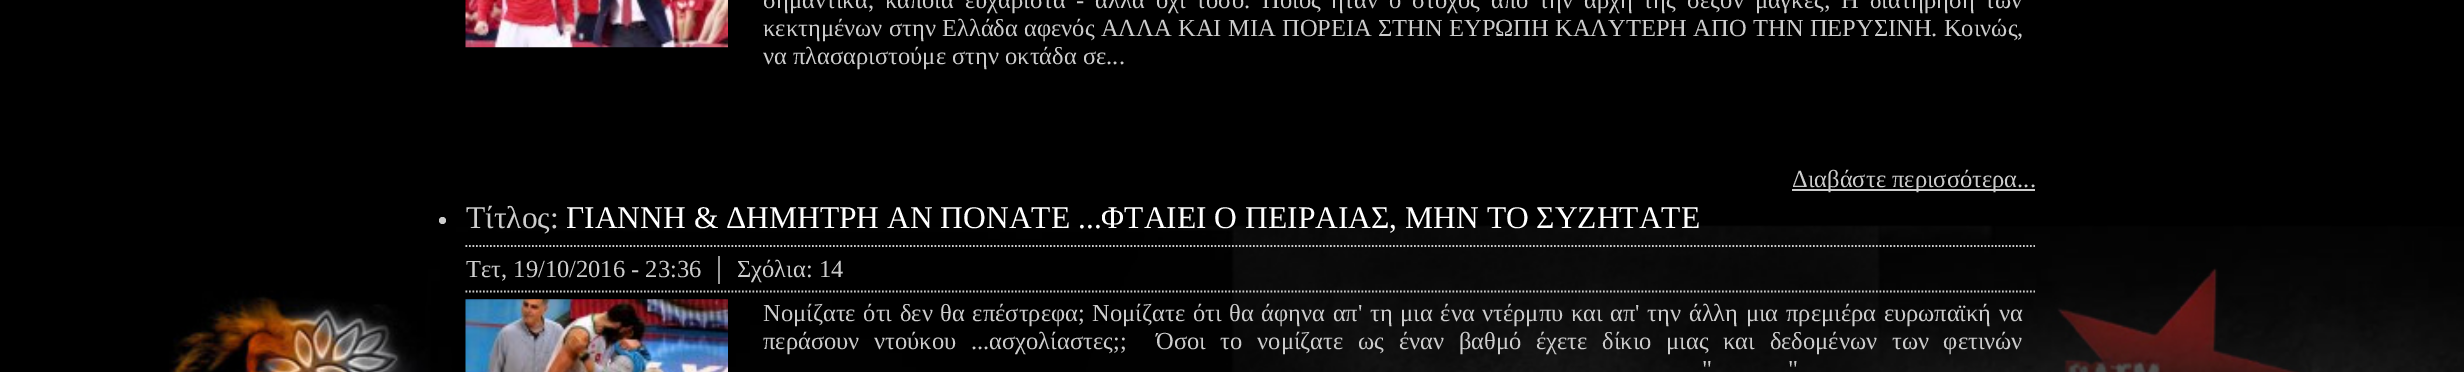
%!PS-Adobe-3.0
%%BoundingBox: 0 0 2464 372
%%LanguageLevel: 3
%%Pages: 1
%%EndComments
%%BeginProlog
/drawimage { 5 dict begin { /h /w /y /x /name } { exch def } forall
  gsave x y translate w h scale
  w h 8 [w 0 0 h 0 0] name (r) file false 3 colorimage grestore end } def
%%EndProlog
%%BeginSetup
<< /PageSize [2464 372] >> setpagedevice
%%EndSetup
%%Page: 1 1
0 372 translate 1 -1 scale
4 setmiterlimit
0 setgray
0 0 2464 372 rectfill
(images/1.raw) 169 225 2295 147 drawimage
(images/2.raw) 465 0 263 48 drawimage
0.8 setgray
1792 189 243 2 rectfill
newpath 442.5 220.5 3.5 0 360 arc closepath fill
1.8 setlinewidth
[1.75 1.75] 0 setdash
newpath 465.5 246 moveto 2035 246 lineto stroke
0.6 setgray
718 256 2 28 rectfill
0.8 setgray
newpath 465.5 291.5 moveto 2035 291.5 lineto stroke
(images/3.raw) 465 299 263 73 drawimage
/LiberationSerif-Regular [24.5 0 0 -24.5 0 0] selectfont
763 8 moveto 4.75 0 32 (σημαντικά, κάποια ευχάριστα - άλλα όχι τόσο.) widthshow
1262 8 moveto 4.75 0 32 (Ποιος ήταν ο στόχος από την αρχή της σεζόν μάγκες; Η διατήρηση των) widthshow
763 36 moveto 0.2 0 32 (κεκτημένων στην Ελλάδα αφενός ΑΛΛΑ ΚΑΙ ΜΙΑ ΠΟΡΕΙΑ ΣΤΗΝ ΕΥΡΩΠΗ ΚΑΛΥΤΕΡΗ ΑΠΟ ΤΗΝ ΠΕΡΥΣΙΝΗ. Κοινώς,) widthshow
763 64 moveto (να πλασαριστούμε στην οκτάδα σε...) show
1792 187 moveto (Διαβάστε περισσότερα...) show
/LiberationSerif-Regular [31.5 0 0 -31.5 0 0] selectfont
466 228 moveto (Τίτλος:) show
1 setgray
566 228 moveto (ΓΙΑΝΝΗ & ΔΗΜΗΤΡΗ ΑΝ ΠΟΝΑΤΕ ...ΦΤΑΙΕΙ Ο ΠΕΙΡΑΙΑΣ, ΜΗΝ ΤΟ ΣΥΖΗΤΑΤΕ) show
/LiberationSerif-Regular [24.5 0 0 -24.5 0 0] selectfont
0.8 setgray
466 277 moveto (Τετ, 19/10/2016 - 23:36) show
737 277 moveto (Σχόλια: 14) show
763 321 moveto 1.5 0 32 (Νομίζατε ότι δεν θα επέστρεφα; Νομίζατε ότι θα άφηνα απ' τη μια ένα ντέρμπυ και απ' την άλλη μια πρεμιέρα ευρωπαϊκή να) widthshow
763 349 moveto 8.6 0 32 (περάσουν ντούκου ...ασχολίαστες;;) widthshow
1156 349 moveto 8.6 0 32 (Όσοι το νομίζατε ως έναν βαθμό έχετε δίκιο μιας και δεδομένων των φετινών) widthshow
1702 377 moveto 1 0 32 (") widthshow
1788 377 moveto 1 0 32 (") widthshow
showpage
%%EOF
